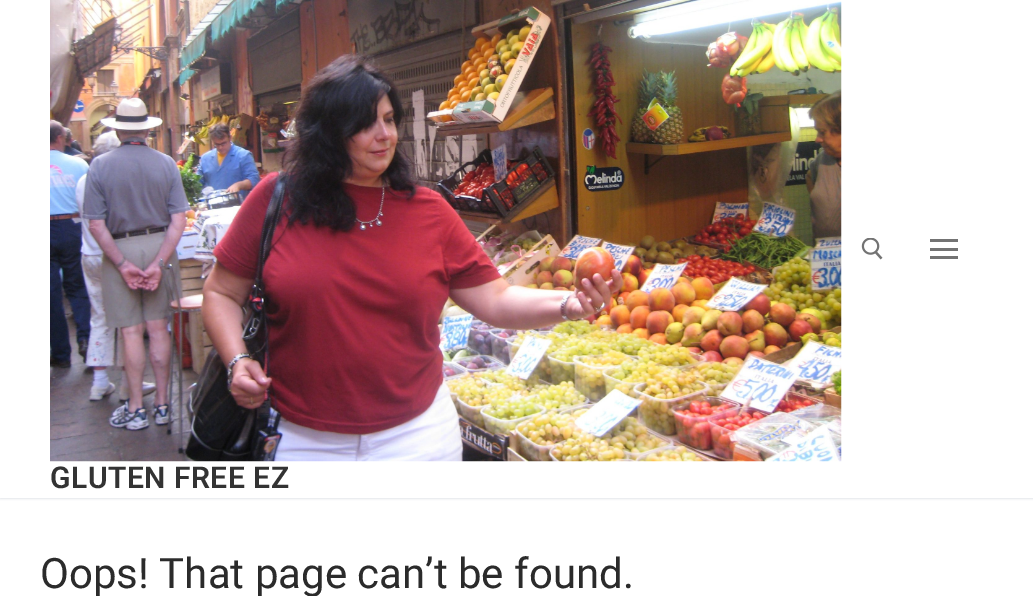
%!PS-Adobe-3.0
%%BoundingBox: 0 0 1033 596
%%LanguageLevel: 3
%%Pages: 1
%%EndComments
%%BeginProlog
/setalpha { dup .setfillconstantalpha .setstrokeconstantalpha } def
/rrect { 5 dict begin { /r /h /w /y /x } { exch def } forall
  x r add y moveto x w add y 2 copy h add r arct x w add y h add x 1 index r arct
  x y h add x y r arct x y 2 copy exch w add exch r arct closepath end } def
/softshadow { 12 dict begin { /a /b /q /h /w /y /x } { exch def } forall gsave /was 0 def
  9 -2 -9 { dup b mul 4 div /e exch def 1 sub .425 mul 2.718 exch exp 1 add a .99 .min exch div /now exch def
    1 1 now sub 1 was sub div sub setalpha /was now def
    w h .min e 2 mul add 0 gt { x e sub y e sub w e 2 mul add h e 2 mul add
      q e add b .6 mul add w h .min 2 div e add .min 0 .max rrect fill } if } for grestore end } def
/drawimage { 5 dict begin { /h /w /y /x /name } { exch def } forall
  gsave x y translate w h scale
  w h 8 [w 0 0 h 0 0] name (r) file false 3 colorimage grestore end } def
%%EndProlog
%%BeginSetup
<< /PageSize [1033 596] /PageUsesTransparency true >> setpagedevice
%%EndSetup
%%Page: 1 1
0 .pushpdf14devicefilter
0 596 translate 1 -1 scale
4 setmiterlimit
1 setgray
0 0 1033 596 rectfill
0.882 0.898 0.918 setrgbcolor
0 1 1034 498 0 1 1 softshadow
1 setgray
0 0 1033 498 rectfill
(images/1.raw) 861 238 22 22 drawimage
0.451 setgray
930 248 28 3 rectfill
930 239 28 3 rectfill
930 256 28 3 rectfill
(images/2.raw) 50 0 792 462 drawimage
/Roboto-SemiBold [30 0 0 -30 0 0] selectfont
0.2 setgray
50 488 moveto 0.5 0 (GLUTEN FREE EZ) ashow
/Roboto-Regular [42 0 0 -42 0 0] selectfont
0.169 setgray
40 588 moveto (Oops! That page can’t be found.) show
.poppdf14devicefilter showpage
%%EOF
